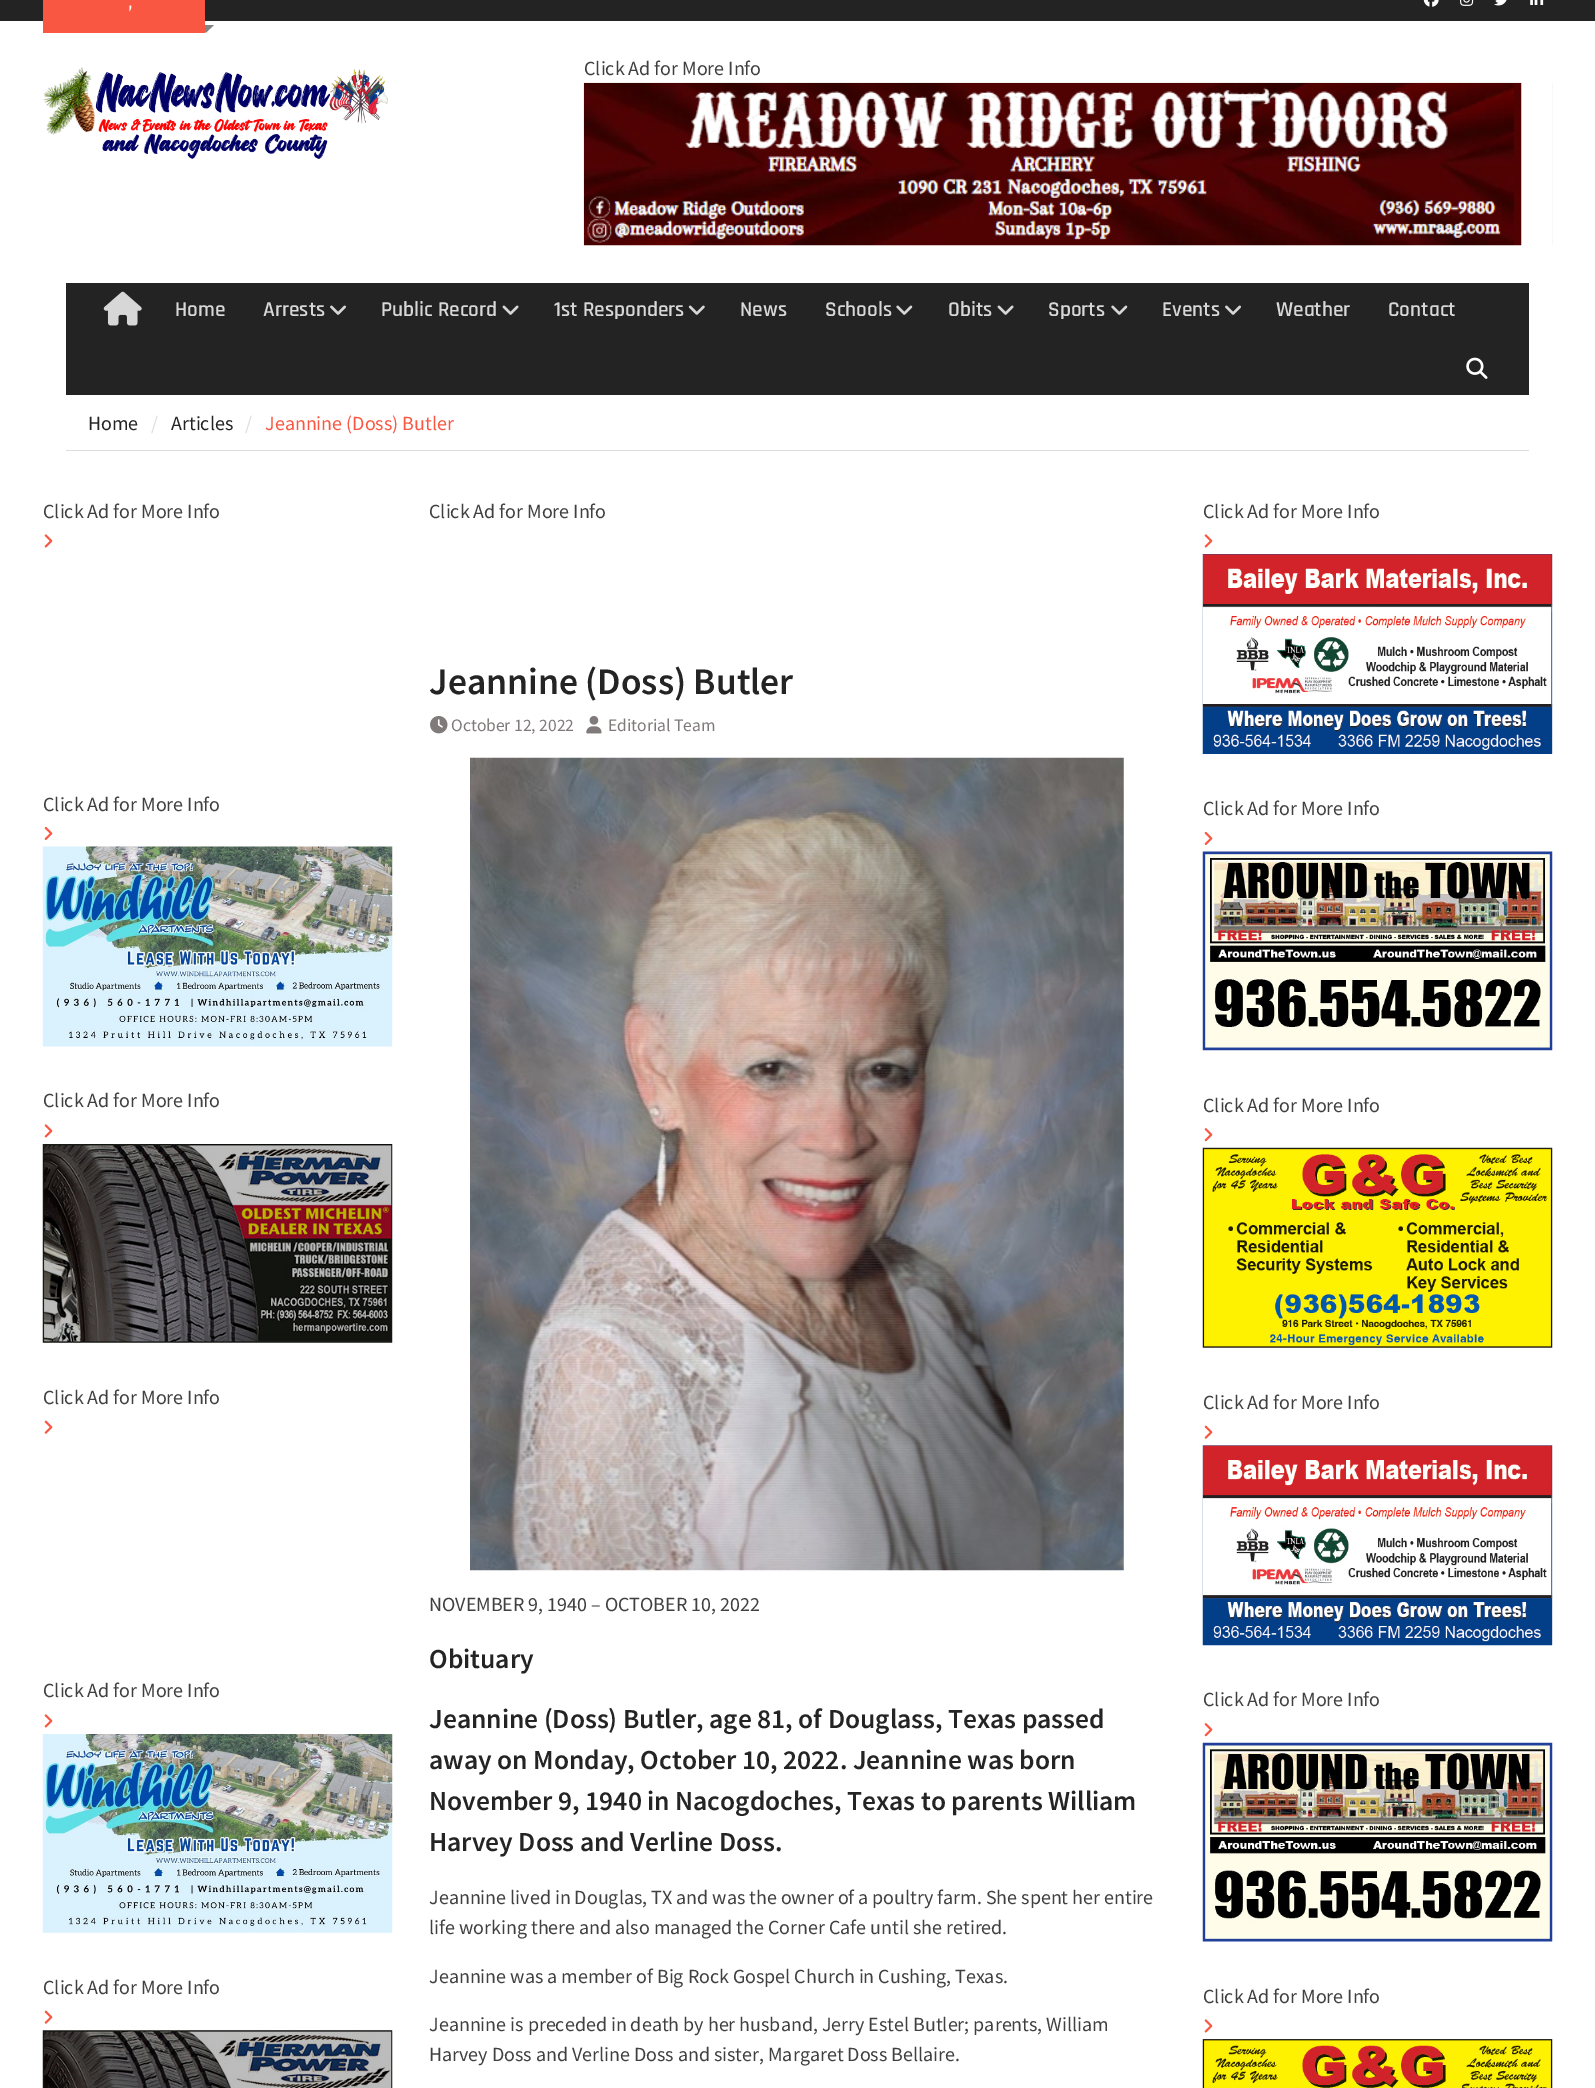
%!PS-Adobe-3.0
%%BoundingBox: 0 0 1595 2088
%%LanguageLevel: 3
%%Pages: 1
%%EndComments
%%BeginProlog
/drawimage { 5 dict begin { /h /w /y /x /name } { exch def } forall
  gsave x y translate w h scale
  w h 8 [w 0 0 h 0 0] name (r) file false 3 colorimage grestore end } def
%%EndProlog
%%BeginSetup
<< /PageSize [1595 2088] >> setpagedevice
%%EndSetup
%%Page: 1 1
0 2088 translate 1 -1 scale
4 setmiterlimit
1 setgray
0 0 1595 2088 rectfill
0.137 setgray
0 0 1595 21 rectfill
(images/1.raw) 1423 0 16 7 drawimage
(images/2.raw) 1460 0 14 6 drawimage
(images/3.raw) 1494 0 13 6 drawimage
(images/4.raw) 1530 0 14 5 drawimage
0.98 0.341 0.259 setrgbcolor
43 0 162 33 rectfill
0.514 setgray
newpath 205 25 moveto 214 25 lineto 206 32.5 lineto 205 32.5 lineto closepath fill
(images/5.raw) 43 67 345 92 drawimage
(images/6.raw) 583 82 939 164 drawimage
0.965 0.98 0.957 setrgbcolor
1552 83 1 162 rectfill
0.137 setgray
66 283 1463 112 rectfill
(images/7.raw) 103 291 39 35 drawimage
(images/8.raw) 330 305 16 10 drawimage
(images/9.raw) 502 305 17 10 drawimage
(images/10.raw) 688 305 17 10 drawimage
(images/11.raw) 896 305 17 10 drawimage
(images/9.raw) 997 305 17 10 drawimage
(images/11.raw) 1111 305 17 10 drawimage
(images/8.raw) 1225 305 16 10 drawimage
(images/12.raw) 1466 357 22 22 drawimage
0.867 setgray
66 450 1463 1 rectfill
(images/13.raw) 44 534 9 14 drawimage
(images/14.raw) 44 826 9 14 drawimage
(images/15.raw) 42 846 351 201 drawimage
(images/13.raw) 44 1124 9 14 drawimage
(images/16.raw) 42 1144 351 199 drawimage
(images/17.raw) 44 1420 9 14 drawimage
(images/13.raw) 44 1714 9 14 drawimage
(images/18.raw) 42 1734 351 199 drawimage
(images/17.raw) 44 2010 9 14 drawimage
(images/19.raw) 42 2030 351 58 drawimage
(images/20.raw) 430 716 18 18 drawimage
(images/21.raw) 586 716 16 18 drawimage
(images/22.raw) 470 757 654 814 drawimage
(images/13.raw) 1204 534 9 14 drawimage
(images/23.raw) 1202 554 351 200 drawimage
(images/14.raw) 1204 831 9 14 drawimage
(images/24.raw) 1202 851 351 200 drawimage
(images/25.raw) 1204 1128 9 14 drawimage
(images/26.raw) 1202 1147 351 201 drawimage
(images/17.raw) 1204 1425 9 14 drawimage
(images/27.raw) 1202 1445 351 201 drawimage
(images/25.raw) 1204 1723 9 14 drawimage
(images/28.raw) 1202 1742 351 200 drawimage
(images/13.raw) 1204 2019 9 14 drawimage
(images/29.raw) 1202 2039 351 49 drawimage
/Rajdhani-Medium [24 0 0 -24 0 0] selectfont
1 setgray
128 9 moveto (,) show
/SourceSansPro-Regular [20 0 0 -20 0 0] selectfont
0.251 setgray
584 75 moveto (Click Ad for More Info) show
/Rajdhani-SemiBold [21.25 0 0 -21.25 0 0] selectfont
0.843 setgray
175 316 moveto (Home) show
263 316 moveto (Arrests) show
381 316 moveto (Public Record) show
554 316 moveto (1st Responders) show
740 316 moveto (News) show
825 316 moveto (Schools) show
948 316 moveto (Obits) show
1048 316 moveto (Sports) show
1162 316 moveto (Events) show
1276 316 moveto (Weather) show
1388 316 moveto (Contact) show
/SourceSansPro-Regular [20 0 0 -20 0 0] selectfont
0.141 setgray
88 430 moveto (Home) show
0.867 setgray
151 430 moveto (/) show
0.141 setgray
171 430 moveto (Articles) show
0.867 setgray
245 430 moveto (/) show
0.98 0.341 0.259 setrgbcolor
265 430 moveto (Jeannine \(Doss\) Butler) show
0.251 setgray
43 518 moveto (Click Ad for More Info) show
43 811 moveto (Click Ad for More Info) show
43 1107 moveto (Click Ad for More Info) show
43 1404 moveto (Click Ad for More Info) show
43 1697 moveto (Click Ad for More Info) show
43 1994 moveto (Click Ad for More Info) show
429 518 moveto (Click Ad for More Info) show
/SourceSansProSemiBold-SemiBold [37.5 0 0 -37.5 0 0] selectfont
0.141 setgray
429 694 moveto (Jeannine \(Doss\) Butler) show
/SourceSansPro-Regular [17.5 0 0 -17.5 0 0] selectfont
0.502 0.478 0.478 setrgbcolor
451 731 moveto (October 12, 2022) show
608 731 moveto (Editorial Team) show
/SourceSansPro-Regular [20 0 0 -20 0 0] selectfont
0.251 setgray
429 1611 moveto (NOVEMBER 9, 1940 – OCTOBER 10, 2022) show
/SourceSansProSemiBold-SemiBold [27.5 0 0 -27.5 0 0] selectfont
0.141 setgray
429 1668 moveto (Obituary) show
429 1728 moveto (Jeannine \(Doss\) Butler, age 81, of Douglass, Texas passed) show
429 1769 moveto (away on Monday, October 10, 2022. Jeannine was born) show
429 1810 moveto (November 9, 1940 in Nacogdoches, Texas to parents William) show
429 1851 moveto (Harvey Doss and Verline Doss.) show
/SourceSansPro-Regular [20 0 0 -20 0 0] selectfont
0.251 setgray
429 1904 moveto (Jeannine lived in Douglas, TX and was the owner of a poultry farm. She spent her entire) show
429 1934 moveto (life working there and also managed the Corner Cafe until she retired.) show
429 1983 moveto (Jeannine was a member of Big Rock Gospel Church in Cushing, Texas.) show
429 2031 moveto (Jeannine is preceded in death by her husband, Jerry Estel Butler; parents, William) show
429 2061 moveto (Harvey Doss and Verline Doss and sister, Margaret Doss Bellaire.) show
1203 518 moveto (Click Ad for More Info) show
1203 815 moveto (Click Ad for More Info) show
1203 1112 moveto (Click Ad for More Info) show
1203 1409 moveto (Click Ad for More Info) show
1203 1706 moveto (Click Ad for More Info) show
1203 2003 moveto (Click Ad for More Info) show
showpage
%%EOF
